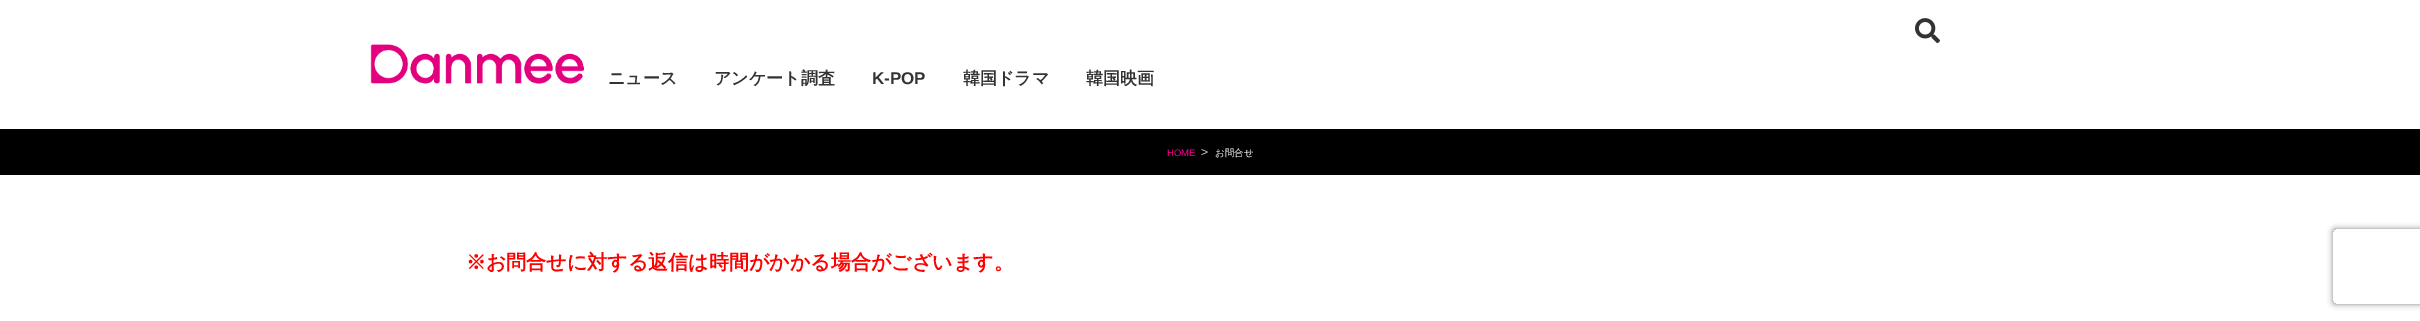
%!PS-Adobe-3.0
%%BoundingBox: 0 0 2420 321
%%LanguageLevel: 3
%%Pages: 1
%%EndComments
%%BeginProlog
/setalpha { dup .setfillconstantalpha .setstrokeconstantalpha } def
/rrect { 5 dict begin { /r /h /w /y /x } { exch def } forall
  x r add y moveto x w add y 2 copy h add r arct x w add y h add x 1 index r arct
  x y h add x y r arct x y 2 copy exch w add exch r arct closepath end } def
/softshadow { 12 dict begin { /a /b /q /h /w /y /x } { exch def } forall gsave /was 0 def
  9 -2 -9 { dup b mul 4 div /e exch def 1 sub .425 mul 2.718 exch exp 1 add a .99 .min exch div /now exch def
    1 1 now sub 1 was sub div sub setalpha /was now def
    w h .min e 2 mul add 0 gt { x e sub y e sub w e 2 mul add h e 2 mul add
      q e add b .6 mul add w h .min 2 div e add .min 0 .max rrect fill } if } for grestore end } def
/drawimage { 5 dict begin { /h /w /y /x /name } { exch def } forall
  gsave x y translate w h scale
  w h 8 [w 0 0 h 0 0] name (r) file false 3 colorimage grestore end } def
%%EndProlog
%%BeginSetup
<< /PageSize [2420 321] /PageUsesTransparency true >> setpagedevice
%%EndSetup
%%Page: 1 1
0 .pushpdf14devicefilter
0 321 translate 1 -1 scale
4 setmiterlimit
1 setgray
0 0 2420 321 rectfill
(images/1.raw) 1915 18 25 26 drawimage
(images/2.raw) 370 44 214 40 drawimage
0 setgray
0 129 2420 46 rectfill
gsave
newpath 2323 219 moveto 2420 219 lineto 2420 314 lineto 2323 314 lineto closepath 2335.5 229 moveto 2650.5 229 lineto 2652 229 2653 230 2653 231.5 curveto 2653 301.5 lineto 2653 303 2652 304 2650.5 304 curveto 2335.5 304 lineto 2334 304 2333 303 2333 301.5 curveto 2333 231.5 lineto 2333 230 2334 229 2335.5 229 curveto closepath eoclip newpath
0.502 setgray
2333 229 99 75 2.5 3 1 softshadow
grestore
/WenQuanYiZenHei-Bold [17 0 0 -17 0 0] selectfont
0.2 setgray
608 84 moveto (ニュース) show
714 84 moveto (アンケート調査) show
/LiberationSans-Bold [17 0 0 -17 0 0] selectfont
872 84 moveto (K-POP) show
/WenQuanYiZenHei-Bold [17 0 0 -17 0 0] selectfont
963 84 moveto (韓国ドラマ) show
1086 84 moveto (韓国映画) show
/LiberationSans-Regular [9.5 0 0 -9.5 0 0] selectfont
1 0 0.565 setrgbcolor
1167 156 moveto (HOME) show
/LiberationSans-Regular [12 0 0 -12 0 0] selectfont
0.8 setgray
1201 156 moveto (>) show
/WenQuanYiZenHei-Medium [9.5 0 0 -9.5 0 0] selectfont
1 setgray
1215 156 moveto (お問合せ) show
/WenQuanYiZenHei-Bold [20 0 0 -20 0 0] selectfont
1 0 0 setrgbcolor
466 269 moveto (※お問合せに対する返信は時間がかかる場合がございます。) show
.poppdf14devicefilter showpage
%%EOF
